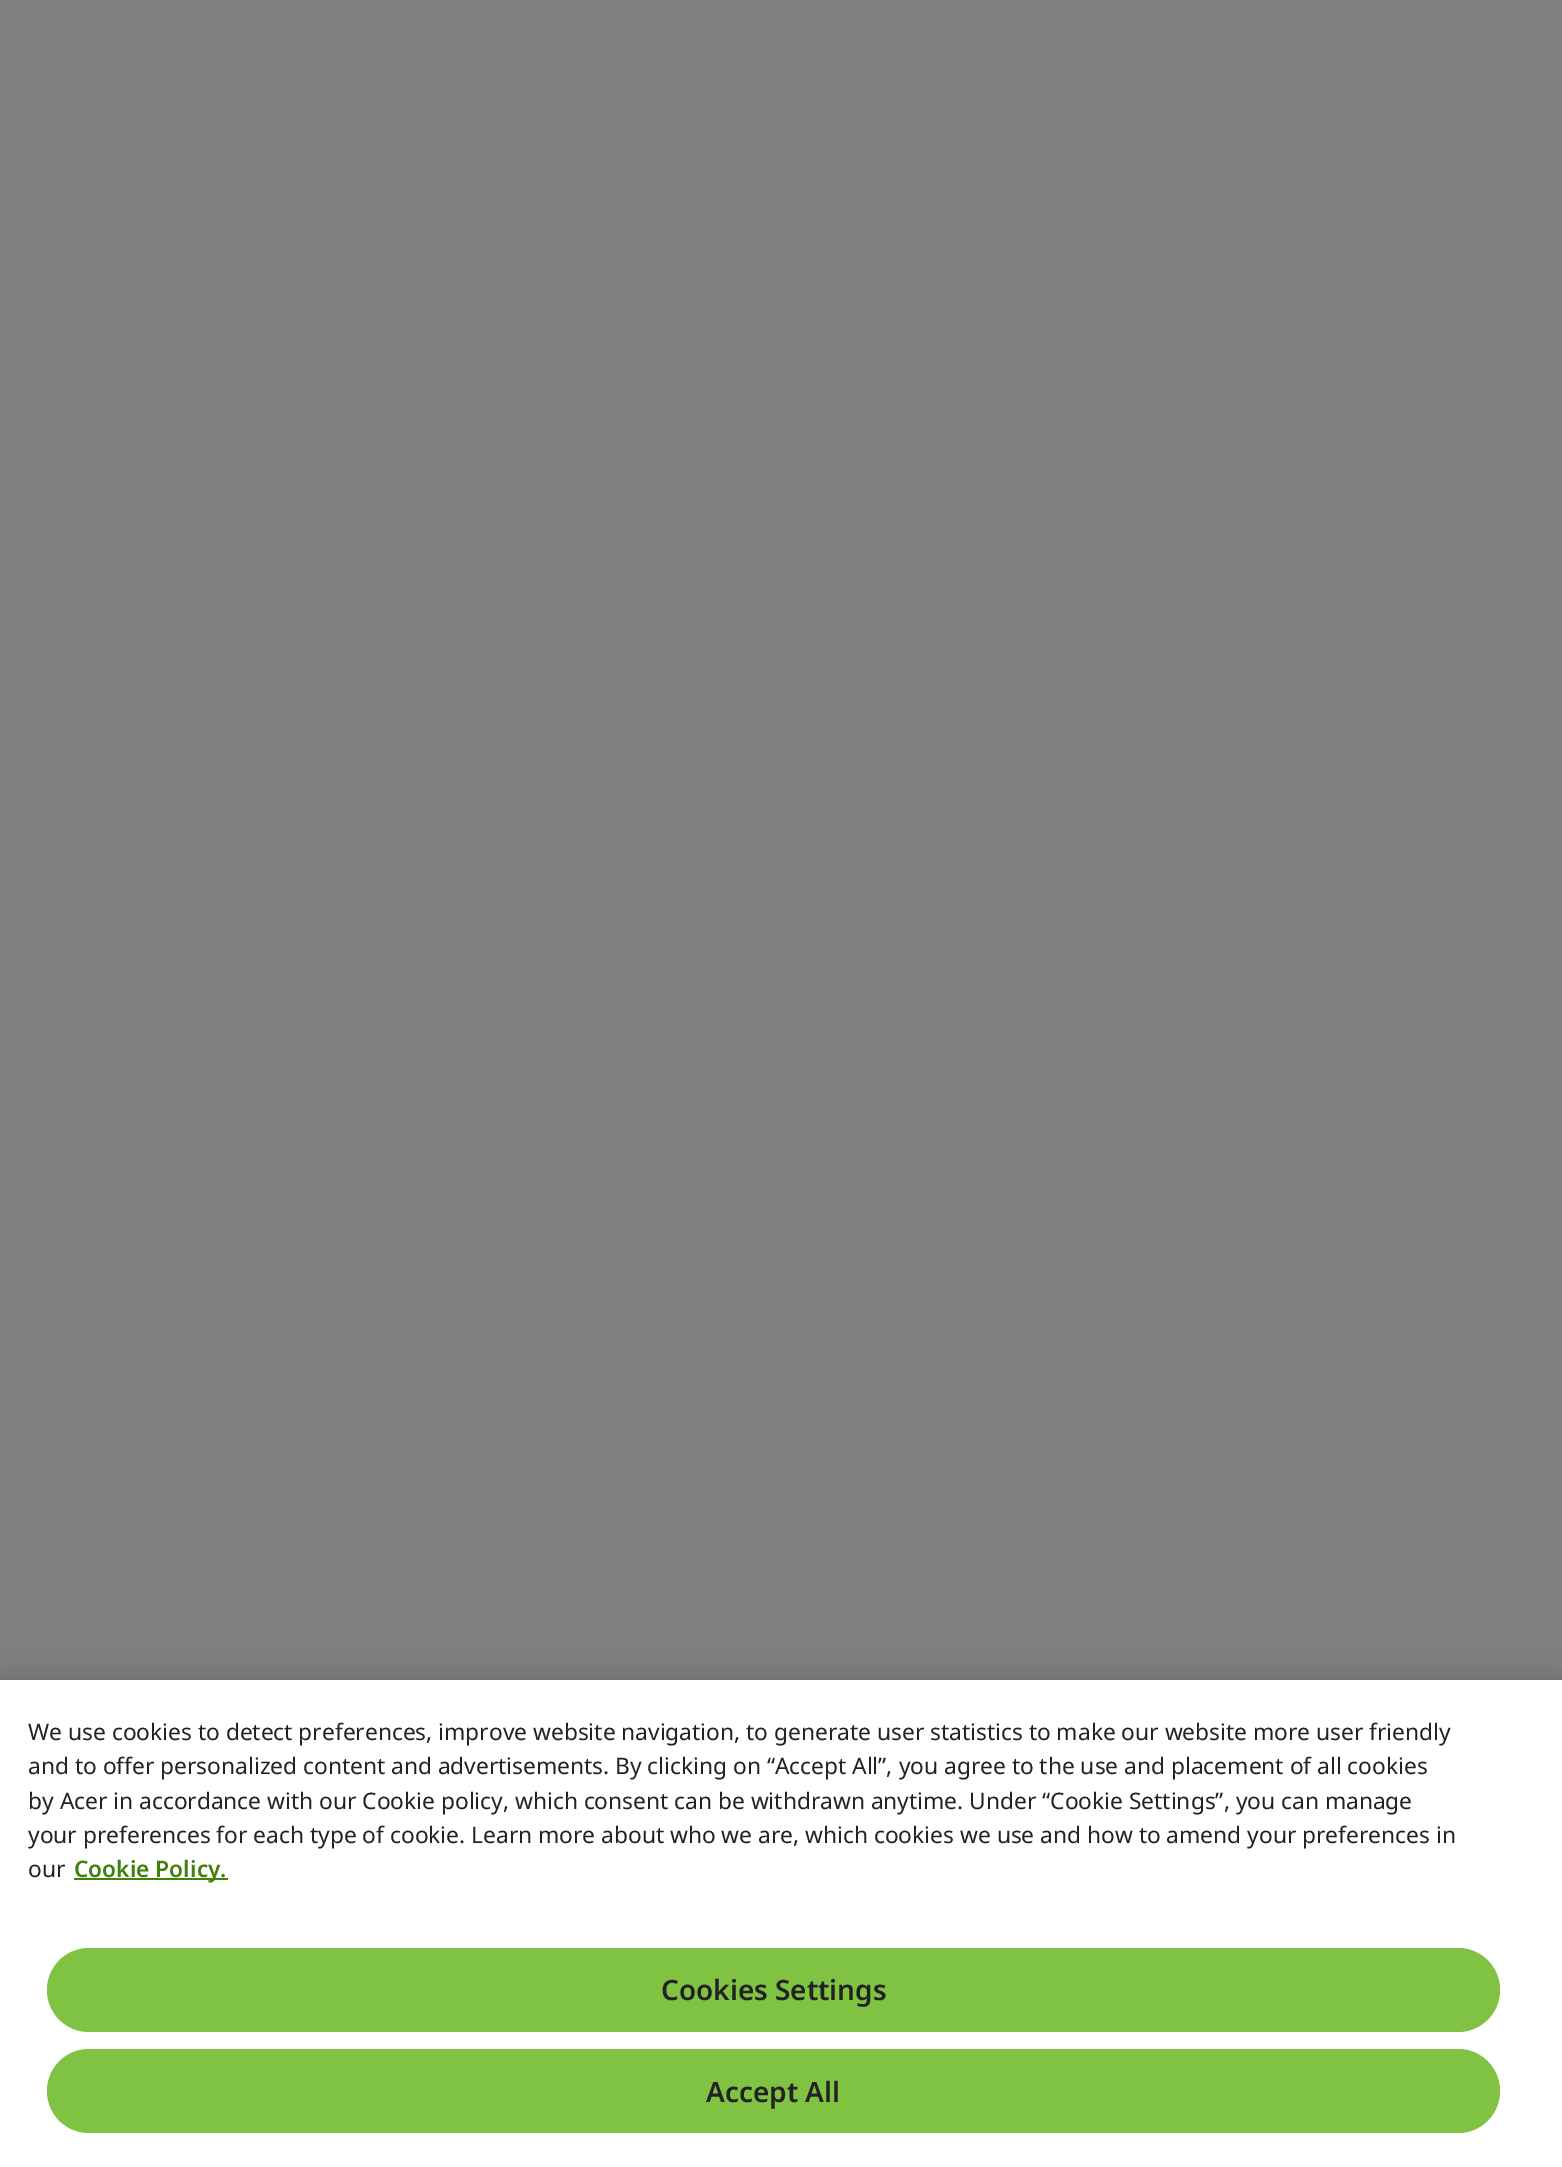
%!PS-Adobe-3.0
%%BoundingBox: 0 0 1562 2167
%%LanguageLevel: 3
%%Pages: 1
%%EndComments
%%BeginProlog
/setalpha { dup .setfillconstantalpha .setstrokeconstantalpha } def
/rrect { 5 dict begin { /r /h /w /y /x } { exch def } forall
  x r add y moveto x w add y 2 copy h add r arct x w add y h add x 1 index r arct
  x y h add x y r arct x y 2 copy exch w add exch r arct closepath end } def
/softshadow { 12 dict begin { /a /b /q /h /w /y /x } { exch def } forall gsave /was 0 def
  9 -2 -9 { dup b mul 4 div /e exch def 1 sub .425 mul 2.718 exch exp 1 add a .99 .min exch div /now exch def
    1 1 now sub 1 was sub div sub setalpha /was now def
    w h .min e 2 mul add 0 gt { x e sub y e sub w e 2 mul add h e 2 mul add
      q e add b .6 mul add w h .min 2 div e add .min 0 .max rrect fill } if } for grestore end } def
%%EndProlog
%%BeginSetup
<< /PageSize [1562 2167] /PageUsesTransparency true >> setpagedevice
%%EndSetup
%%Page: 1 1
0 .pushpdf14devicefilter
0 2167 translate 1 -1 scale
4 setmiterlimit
0.502 setgray
0 0 1562 2167 rectfill
0 setgray
0 1680 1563 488 0 16 0.2 softshadow
1 setgray
0 1680 1562 487 rectfill
0.251 0.506 0.047 setrgbcolor
74 1878 154 2 rectfill
0.502 0.765 0.263 setrgbcolor
47 1948 1453 84 42 rrect fill
47 2049 1453 84 42 rrect fill
/NotoSans-Regular [22.75 0 0 -22.75 0 0] selectfont
0.133 setgray
28 1740 moveto (We use cookies to detect preferences, improve website navigation, to generate user statistics to make our website more user friendly) show
28 1774 moveto (and to offer personalized content and advertisements.) show
615 1774 moveto (By clicking on “Accept All”, you agree to the use and placement of all cookies) show
28 1809 moveto (by Acer in accordance with our Cookie policy, which consent can be withdrawn anytime. Under “Cookie Settings”, you can manage) show
28 1843 moveto (your preferences for each type of cookie. Learn more about who we are, which cookies we use and how to amend your preferences in) show
28 1877 moveto (our) show
/NotoSans-SemiBold [22.75 0 0 -22.75 0 0] selectfont
0.251 0.506 0.047 setrgbcolor
74 1877 moveto (Cookie Policy.) show
/NotoSans-SemiBold [28 0 0 -28 0 0] selectfont
0.133 setgray
661 2000 moveto (Cookies Settings) show
706 2102 moveto (Accept All) show
.poppdf14devicefilter showpage
%%EOF
